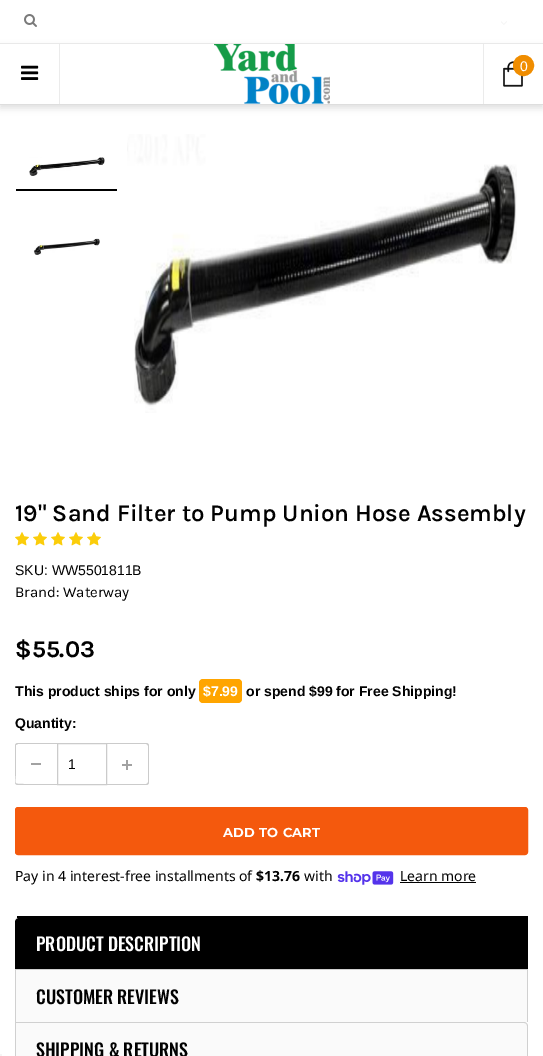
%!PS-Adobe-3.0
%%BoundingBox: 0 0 543 1056
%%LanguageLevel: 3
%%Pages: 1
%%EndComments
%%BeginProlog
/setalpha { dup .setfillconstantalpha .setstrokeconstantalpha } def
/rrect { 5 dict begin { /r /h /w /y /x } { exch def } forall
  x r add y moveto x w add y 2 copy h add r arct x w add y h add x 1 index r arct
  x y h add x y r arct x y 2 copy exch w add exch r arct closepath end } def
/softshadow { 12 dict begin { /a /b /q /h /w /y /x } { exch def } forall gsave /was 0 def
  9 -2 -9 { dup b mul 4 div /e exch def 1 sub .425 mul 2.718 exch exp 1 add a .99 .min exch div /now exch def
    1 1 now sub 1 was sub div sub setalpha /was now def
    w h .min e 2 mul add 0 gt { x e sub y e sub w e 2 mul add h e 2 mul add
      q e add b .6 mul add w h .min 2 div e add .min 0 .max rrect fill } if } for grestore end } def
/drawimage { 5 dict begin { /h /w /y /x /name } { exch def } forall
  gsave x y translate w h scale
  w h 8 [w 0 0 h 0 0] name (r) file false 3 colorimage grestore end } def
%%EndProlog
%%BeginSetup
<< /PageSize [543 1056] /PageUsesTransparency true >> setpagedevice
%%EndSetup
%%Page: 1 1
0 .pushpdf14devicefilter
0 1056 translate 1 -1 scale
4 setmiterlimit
1 setgray
0 0 543 1056 rectfill
0.961 setgray
0 1054 2 2 rectfill
0.922 setgray
0 43 543 1 rectfill
(images/1.raw) 24 14 13 13 drawimage
(images/2.raw) 501 21 6 4 drawimage
gsave
newpath 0 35 moveto 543 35 lineto 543 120 lineto 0 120 lineto closepath 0 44 moveto 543 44 lineto 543 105 lineto 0 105 lineto closepath eoclip newpath
0.871 setgray
0 47 543 61 0 3.5 1 softshadow
grestore
0.871 setgray
0 104 543 1 rectfill
0.922 setgray
59 44 1 60 rectfill
(images/3.raw) 21 65 18 15 drawimage
(images/4.raw) 214 44 116 60 drawimage
483 44 1 60 rectfill
(images/5.raw) 503 61 20 26 drawimage
0.941 0.553 0 setrgbcolor
newpath 523.5 65.5 10 0 360 arc closepath gsave fill grestore
stroke
0 setgray
16 189 101 2 rectfill
(images/6.raw) 29 157 76 19 drawimage
(images/7.raw) 33 238 67 17 drawimage
(images/8.raw) 127 134 390 279 drawimage
(images/9.raw) 15 532 14 14 drawimage
(images/9.raw) 33 532 14 14 drawimage
(images/9.raw) 51 532 14 14 drawimage
(images/9.raw) 69 532 14 14 drawimage
(images/9.raw) 87 532 14 14 drawimage
1 0.647 0 setrgbcolor
199 679 43 24 4 rrect fill
0.635 setgray
31 763 10 2 rectfill
0.796 setgray
newpath 18 743 moveto 57 743 lineto 57 785 lineto 18 785 lineto 16 785 15 784 15 782 curveto 15 746 lineto 15 744 16 743 18 743 curveto closepath 18 744 moveto 57 744 lineto 57 784 lineto 24 784 lineto 12 784 16 784 16 770 curveto 16 745 lineto closepath eofill
57.5 743.5 49 41 rectstroke
(images/10.raw) 122 760 10 10 drawimage
newpath 107 743 moveto 146 743 lineto 148 743 149 744 149 746 curveto 149 782 lineto 149 784 148 785 146 785 curveto 107 785 lineto closepath 107 744 moveto 146 744 lineto 147 744 148 745 148 746 curveto 148 782 lineto 148 783 147 784 146 784 curveto 107 784 lineto closepath eofill
0.957 0.349 0.051 setrgbcolor
15.5 807.5 512 47 2.5 rrect gsave fill grestore
stroke
(images/11.raw) 337 871 57 14 drawimage
0.004 setgray
400 882 76 1 rectfill
0.98 setgray
newpath 19 916 moveto 528 916 lineto 528 969 lineto 15 969 lineto 15 920 lineto 15 918 17 916 19 916 curveto closepath fill
0 setgray
17 916 511 2 rectfill
newpath 19 918 moveto 528 918 lineto 528 970 lineto 15 970 lineto 15 922 lineto 15 920 17 918 19 918 curveto closepath fill
0.98 setgray
16 970 511 52 rectfill
0.816 setgray
15 969 513 1 rectfill
527 969 1 53 rectfill
15 969 1 53 rectfill
0.98 setgray
newpath 15 1022 moveto 524 1022 lineto 526 1022 528 1024 528 1026 curveto 528 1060 lineto 15 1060 lineto closepath fill
0.816 setgray
newpath 15 1022 moveto 524 1022 lineto 526 1022 528 1024 528 1026 curveto 528 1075 lineto 15 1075 lineto closepath 16 1023 moveto 524 1023 lineto 526 1023 527 1024 527 1026 curveto 527 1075 lineto 16 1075 lineto closepath eofill
/Arimo-Regular [14 0 0 -14 0 0] selectfont
1 setgray
520 71 moveto (0) show
/Karla-SemiBold [24 0 0 -24 0 0] selectfont
0.004 setgray
15 521 moveto (19" Sand Filter to Pump Union Hose Assembly) show
/Arimo-Regular [14 0 0 -14 0 0] selectfont
15 575 moveto (SKU: WW5501811B) show
/Karla-Regular [15 0 0 -15 0 0] selectfont
15 597 moveto (Brand: Waterway) show
/Karla-Bold [24 0 0 -24 0 0] selectfont
15 657 moveto ($55.03) show
/Arimo-Bold [14 0 0 -14 0 0] selectfont
15 696 moveto (This product ships for only) show
1 setgray
203 696 moveto ($7.99) show
0.004 setgray
246 696 moveto (or spend $99 for Free Shipping!) show
15 728 moveto (Quantity:) show
/Arimo-Regular [14 0 0 -14 0 0] selectfont
68 769 moveto (1) show
/Montserrat-Bold [13 0 0 -13 0 0] selectfont
1 setgray
223 837 moveto 0.25 0 (ADD TO CART) ashow
/NotoSans-Regular [14 0 0 -14 0 0] selectfont
0.004 setgray
15 881 moveto (Pay in 4 interest-free installments of) show
/NotoSans-Bold [14 0 0 -14 0 0] selectfont
256 881 moveto ($13.76) show
/NotoSans-Regular [14 0 0 -14 0 0] selectfont
304 881 moveto (with) show
400 881 moveto (Learn more) show
/Oswald-Medium [18 0 0 -18 0 0] selectfont
1 setgray
36 951 moveto (PRODUCT DESCRIPTION) show
0.004 setgray
36 1004 moveto (CUSTOMER REVIEWS) show
36 1057 moveto (SHIPPING & RETURNS) show
.poppdf14devicefilter showpage
%%EOF
